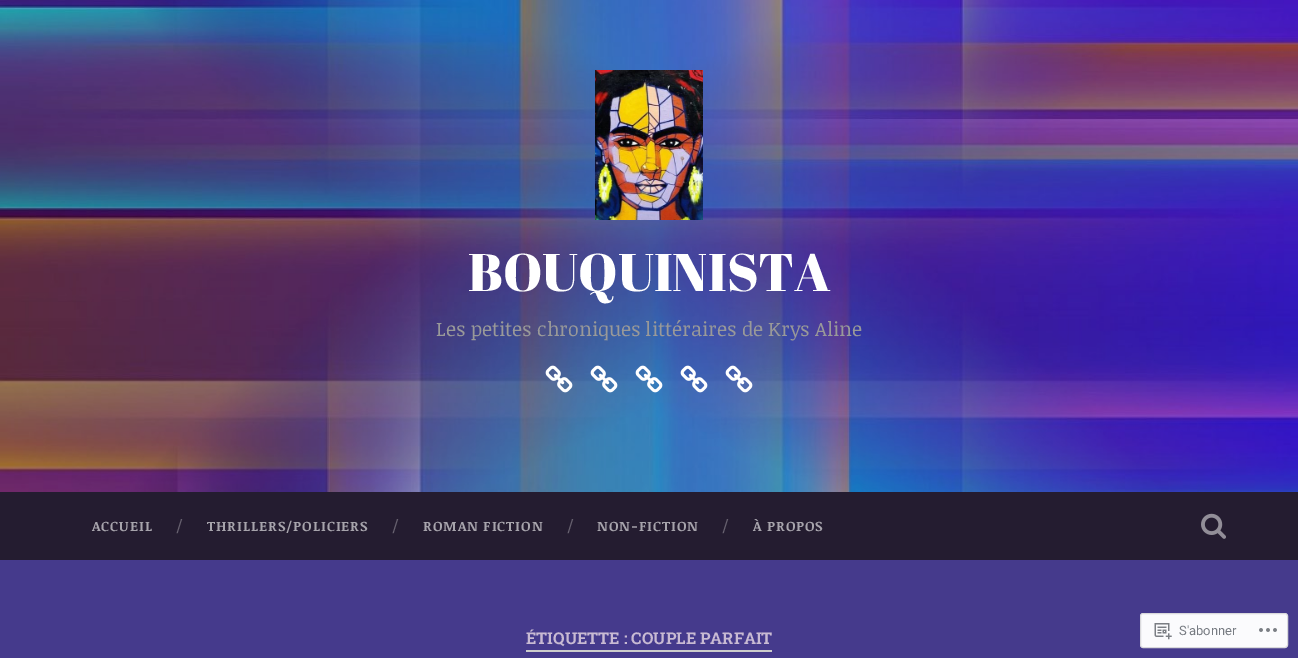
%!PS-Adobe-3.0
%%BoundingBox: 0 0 1298 658
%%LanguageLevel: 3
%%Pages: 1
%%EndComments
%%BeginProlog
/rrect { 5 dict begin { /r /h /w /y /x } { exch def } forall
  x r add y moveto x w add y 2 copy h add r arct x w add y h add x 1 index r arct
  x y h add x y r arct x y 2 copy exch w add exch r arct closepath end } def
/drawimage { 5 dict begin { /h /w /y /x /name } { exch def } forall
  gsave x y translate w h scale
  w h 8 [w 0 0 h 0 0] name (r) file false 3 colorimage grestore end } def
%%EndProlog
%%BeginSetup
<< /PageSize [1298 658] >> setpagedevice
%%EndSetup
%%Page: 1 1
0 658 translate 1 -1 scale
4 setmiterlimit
0.271 0.227 0.549 setrgbcolor
0 0 1298 658 rectfill
(images/1.raw) 0 0 1298 492 drawimage
(images/2.raw) 595 70 108 150 drawimage
(images/3.raw) 545 365 28 28 drawimage
(images/4.raw) 590 365 28 28 drawimage
(images/5.raw) 635 365 28 28 drawimage
(images/6.raw) 680 365 28 28 drawimage
(images/7.raw) 725 365 28 28 drawimage
0.141 0.11 0.188 setrgbcolor
0 492 1298 68 rectfill
(images/8.raw) 1201 513 25 26 drawimage
0.8 setgray
526 650 246 2 rectfill
0.984 0.984 0.992 setrgbcolor
1140.5 613.5 147 34 2.5 rrect gsave fill grestore
0.851 0.851 0.863 setrgbcolor
stroke
(images/9.raw) 1154 623 18 17 drawimage
(images/10.raw) 1259 628 18 4 drawimage
/AbrilFatface-Regular [52.75 0 0 -52.75 0 0] selectfont
1 setgray
468 291 moveto (BOUQUINISTA) show
/NoticiaText-Regular [19.8 0 0 -19.8 0 0] selectfont
0.6 setgray
436 336 moveto (Les petites chroniques littéraires de Krys Aline) show
/NoticiaText-Bold [13.75 0 0 -13.75 0 0] selectfont
0.655 0.643 0.675 setrgbcolor
92 531 moveto 1 0 (ACCUEIL) ashow
/NoticiaText-Regular [16 0 0 -16 0 0] selectfont
0.4 0.376 0.431 setrgbcolor
176 531 moveto (/) show
/NoticiaText-Bold [13.75 0 0 -13.75 0 0] selectfont
0.655 0.643 0.675 setrgbcolor
207 531 moveto 1 0 (THRILLERS/POLICIERS) ashow
/NoticiaText-Regular [16 0 0 -16 0 0] selectfont
0.4 0.376 0.431 setrgbcolor
392 531 moveto (/) show
/NoticiaText-Bold [13.75 0 0 -13.75 0 0] selectfont
0.655 0.643 0.675 setrgbcolor
423 531 moveto 1 0 (ROMAN FICTION) ashow
/NoticiaText-Regular [16 0 0 -16 0 0] selectfont
0.4 0.376 0.431 setrgbcolor
567 531 moveto (/) show
/NoticiaText-Bold [13.75 0 0 -13.75 0 0] selectfont
0.655 0.643 0.675 setrgbcolor
597 531 moveto 1 0 (NON-FICTION) ashow
/NoticiaText-Regular [16 0 0 -16 0 0] selectfont
0.4 0.376 0.431 setrgbcolor
722 531 moveto (/) show
/NoticiaText-Bold [13.75 0 0 -13.75 0 0] selectfont
0.655 0.643 0.675 setrgbcolor
753 531 moveto 1 0 (À PROPOS) ashow
/RobotoSlab-Bold [16.25 0 0 -16.25 0 0] selectfont
0.784 0.729 0.827 setrgbcolor
526 644 moveto (ÉTIQUETTE : COUPLE PARFAIT) show
/Roboto-Regular [13 0 0 -13 0 0] selectfont
0.467 0.482 0.51 setrgbcolor
1179 635 moveto (S'abonner) show
showpage
%%EOF
